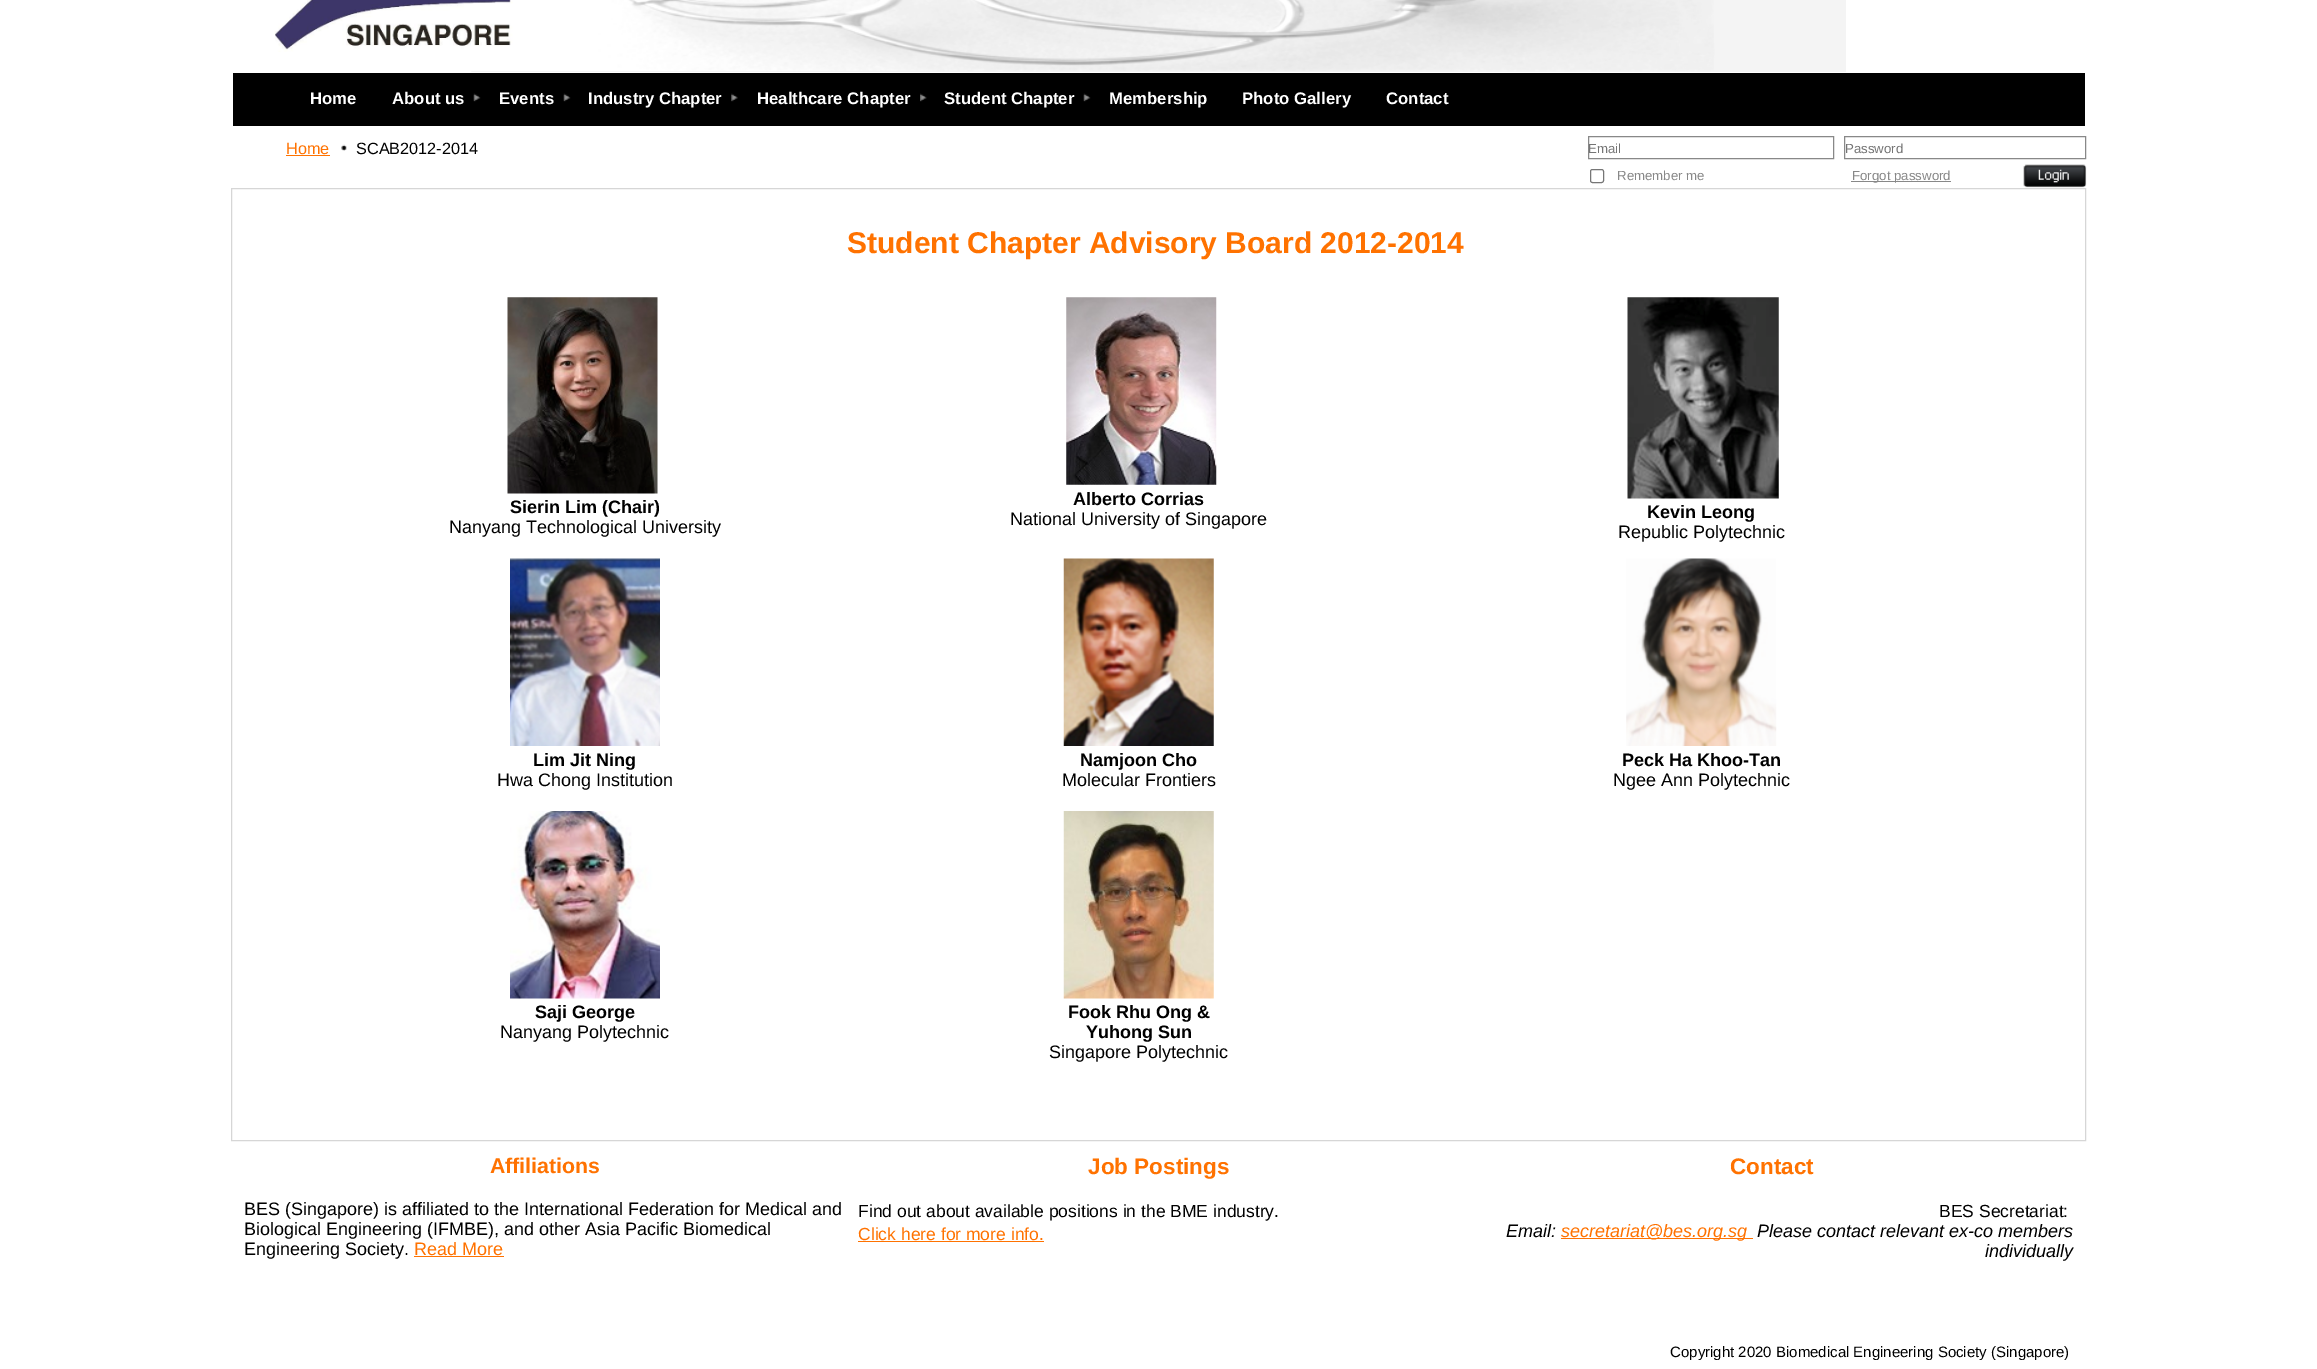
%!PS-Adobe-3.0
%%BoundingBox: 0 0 2317 1369
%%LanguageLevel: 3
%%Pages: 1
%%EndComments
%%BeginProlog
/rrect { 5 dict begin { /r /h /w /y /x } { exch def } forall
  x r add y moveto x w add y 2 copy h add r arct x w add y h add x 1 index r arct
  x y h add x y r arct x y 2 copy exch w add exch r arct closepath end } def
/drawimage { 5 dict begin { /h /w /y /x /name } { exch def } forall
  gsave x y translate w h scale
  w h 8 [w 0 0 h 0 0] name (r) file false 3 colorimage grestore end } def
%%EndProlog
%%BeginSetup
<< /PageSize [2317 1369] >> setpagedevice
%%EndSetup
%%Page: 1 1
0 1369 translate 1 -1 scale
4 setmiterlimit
1 setgray
0 0 2317 1369 rectfill
(images/1.raw) 471 0 1375 72 drawimage
(images/2.raw) 274 0 239 52 drawimage
0 setgray
233 73 1852 53 rectfill
(images/3.raw) 473 93 8 9 drawimage
(images/4.raw) 563 93 8 9 drawimage
(images/5.raw) 731 93 7 9 drawimage
(images/6.raw) 920 93 7 9 drawimage
(images/4.raw) 1083 93 8 9 drawimage
1 0.447 0 setrgbcolor
286 155 44 1 rectfill
(images/7.raw) 341 144 6 7 drawimage
0.533 setgray
1588.5 136.5 245 22 rectstroke
1844.5 136.5 241 22 rectstroke
0.463 setgray
1590.5 169.5 13 13 2 rrect stroke
0.533 setgray
1851 181 100 1 rectfill
(images/8.raw) 2023 164 64 24 drawimage
0.839 setgray
231.5 188.5 1854 952 rectstroke
(images/9.raw) 507 297 151 197 drawimage
(images/10.raw) 1066 297 151 188 drawimage
(images/11.raw) 1627 297 152 202 drawimage
(images/12.raw) 510 558 150 188 drawimage
(images/13.raw) 1063 558 151 188 drawimage
(images/14.raw) 1626 558 151 188 drawimage
(images/15.raw) 510 811 150 188 drawimage
(images/16.raw) 1063 811 151 188 drawimage
1 0.447 0 setrgbcolor
414 1256 90 1 rectfill
858 1241 186 1 rectfill
1561 1238 192 1 rectfill
/LiberationSans-Bold [16.75 0 0 -16.75 0 0] selectfont
1 setgray
310 104 moveto (Home) show
392 104 moveto (About us) show
499 104 moveto (Events) show
588 104 moveto (Industry Chapter) show
757 104 moveto (Healthcare Chapter) show
944 104 moveto (Student Chapter) show
1109 104 moveto (Membership) show
1242 104 moveto (Photo Gallery) show
1386 104 moveto (Contact) show
/LiberationSans-Regular [16.25 0 0 -16.25 0 0] selectfont
1 0.447 0 setrgbcolor
286 154 moveto (Home) show
0 setgray
356 154 moveto (SCAB2012-2014) show
/LiberationSans-Regular [13.25 0 0 -13.25 0 0] selectfont
0.459 setgray
1588 153 moveto (Email) show
1845 153 moveto (Password) show
0.533 setgray
1617 180 moveto (Remember me) show
1852 180 moveto (Forgot password) show
/LiberationSans-Bold [30 0 0 -30 0 0] selectfont
1 0.447 0 setrgbcolor
847 253 moveto (Student Chapter Advisory Board 2012-2014) show
/LiberationSans-Bold [18 0 0 -18 0 0] selectfont
0 setgray
510 513 moveto (Sierin Lim \(Chair\)) show
/LiberationSans-Regular [18 0 0 -18 0 0] selectfont
449 533 moveto (Nanyang Technological University) show
/LiberationSans-Bold [18 0 0 -18 0 0] selectfont
1073 505 moveto (Alberto Corrias) show
/LiberationSans-Regular [18 0 0 -18 0 0] selectfont
1010 525 moveto (National University of Singapore) show
/LiberationSans-Bold [18 0 0 -18 0 0] selectfont
1647 518 moveto (Kevin Leong) show
/LiberationSans-Regular [18 0 0 -18 0 0] selectfont
1618 538 moveto (Republic Polytechnic) show
/LiberationSans-Bold [18 0 0 -18 0 0] selectfont
533 766 moveto (Lim Jit Ning) show
/LiberationSans-Regular [18 0 0 -18 0 0] selectfont
497 786 moveto (Hwa Chong Institution) show
/LiberationSans-Bold [18 0 0 -18 0 0] selectfont
1080 766 moveto (Namjoon Cho) show
/LiberationSans-Regular [18 0 0 -18 0 0] selectfont
1062 786 moveto (Molecular Frontiers) show
/LiberationSans-Bold [18 0 0 -18 0 0] selectfont
1622 766 moveto (Peck Ha Khoo-Tan) show
/LiberationSans-Regular [18 0 0 -18 0 0] selectfont
1613 786 moveto (Ngee Ann Polytechnic) show
/LiberationSans-Bold [18 0 0 -18 0 0] selectfont
535 1018 moveto (Saji George) show
/LiberationSans-Regular [18 0 0 -18 0 0] selectfont
500 1038 moveto (Nanyang Polytechnic) show
/LiberationSans-Bold [18 0 0 -18 0 0] selectfont
1068 1018 moveto (Fook Rhu Ong &) show
1086 1038 moveto (Yuhong Sun) show
/LiberationSans-Regular [18 0 0 -18 0 0] selectfont
1049 1058 moveto (Singapore Polytechnic) show
/LiberationSans-Bold [21.25 0 0 -21.25 0 0] selectfont
1 0.447 0 setrgbcolor
490 1173 moveto (Affiliations) show
/LiberationSans-Regular [18 0 0 -18 0 0] selectfont
0 setgray
244 1215 moveto (BES \(Singapore\) is affiliated to the International Federation for) show
745 1215 moveto (Medical and) show
244 1235 moveto (Biological Engineering \(IFMBE\), and other Asia Pacific) show
683 1235 moveto (Biomedical) show
244 1255 moveto (Engineering Society.) show
1 0.447 0 setrgbcolor
414 1255 moveto (Read More) show
/LiberationSans-Bold [22.5 0 0 -22.5 0 0] selectfont
1088 1174 moveto (Job Postings) show
/LiberationSans-Regular [17.5 0 0 -17.5 0 0] selectfont
0 setgray
858 1217 moveto (Find out about available positions in the BME industry.) show
1 0.447 0 setrgbcolor
858 1240 moveto (Click here for more info.) show
/LiberationSans-Bold [22.5 0 0 -22.5 0 0] selectfont
1730 1174 moveto (Contact) show
/LiberationSans-Regular [17.5 0 0 -17.5 0 0] selectfont
0 setgray
1939 1217 moveto (BES Secretariat:) show
/LiberationSans-Italic [18 0 0 -18 0 0] selectfont
1506 1237 moveto (Email:) show
1 0.447 0 setrgbcolor
1561 1237 moveto (secretariat@bes.org.sg) show
0 setgray
1757 1237 moveto (Please contact relevant ex-co members) show
1985 1257 moveto (individually) show
gsave
1471 1154 603 206 rectclip
/LiberationSans-Regular [15 0 0 -15 0 0] selectfont
1670 1357 moveto (Copyright 2020 Biomedical Engineering Society \(Singapore\)) show
grestore
showpage
%%EOF
